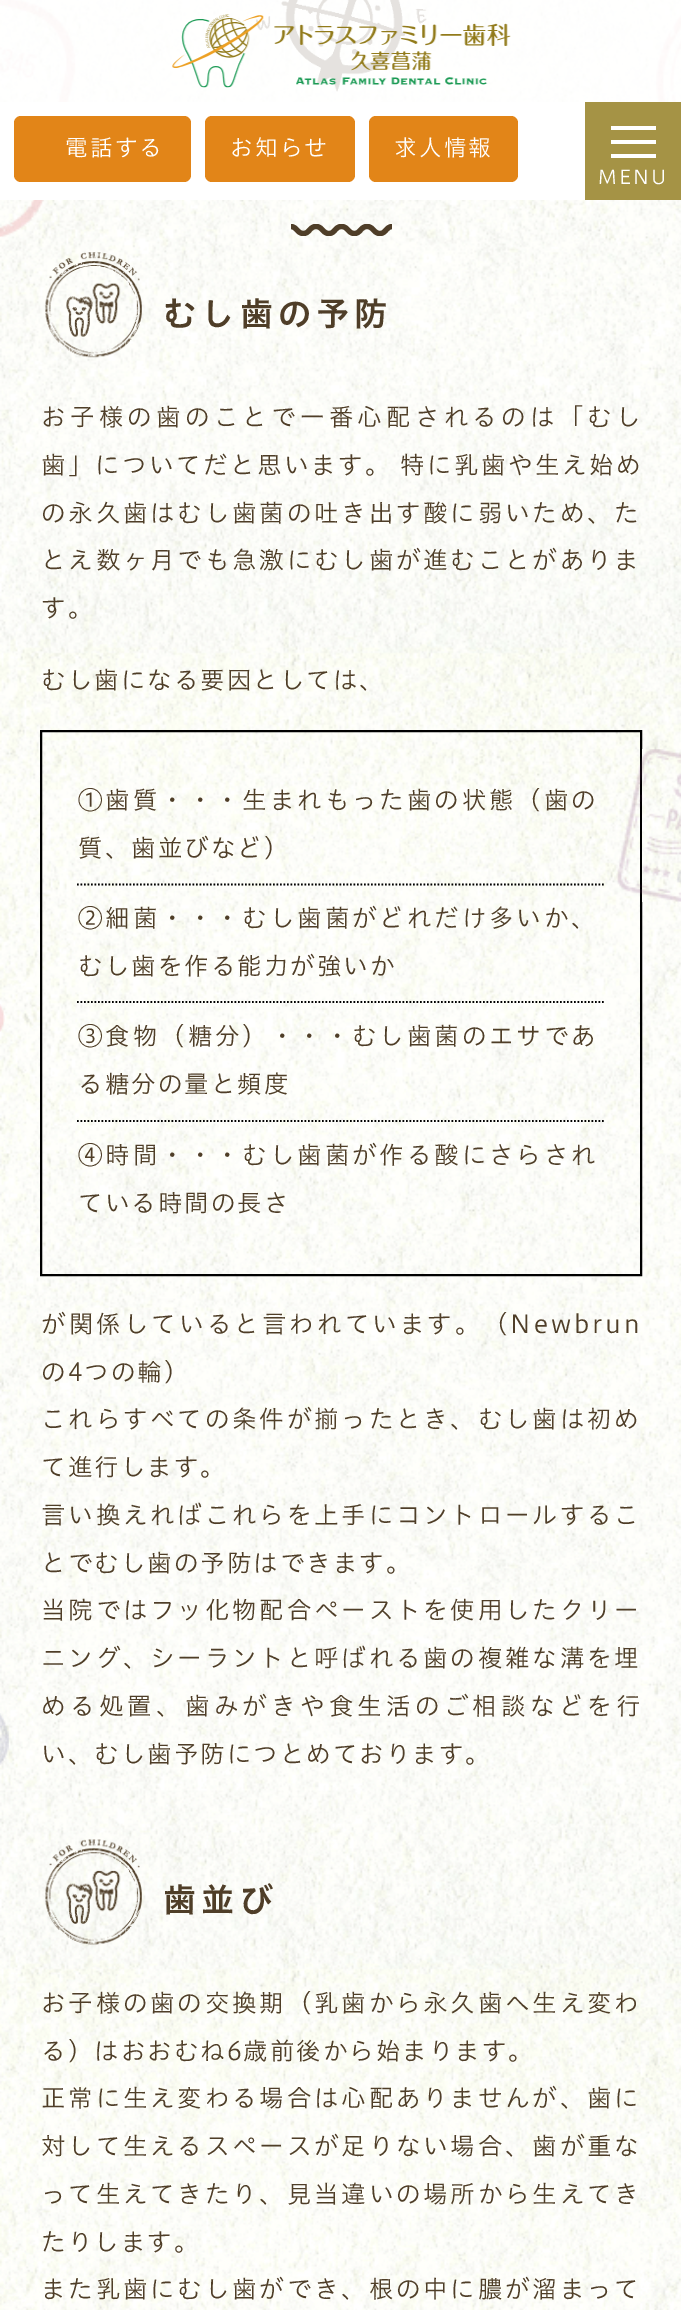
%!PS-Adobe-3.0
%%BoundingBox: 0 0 681 2310
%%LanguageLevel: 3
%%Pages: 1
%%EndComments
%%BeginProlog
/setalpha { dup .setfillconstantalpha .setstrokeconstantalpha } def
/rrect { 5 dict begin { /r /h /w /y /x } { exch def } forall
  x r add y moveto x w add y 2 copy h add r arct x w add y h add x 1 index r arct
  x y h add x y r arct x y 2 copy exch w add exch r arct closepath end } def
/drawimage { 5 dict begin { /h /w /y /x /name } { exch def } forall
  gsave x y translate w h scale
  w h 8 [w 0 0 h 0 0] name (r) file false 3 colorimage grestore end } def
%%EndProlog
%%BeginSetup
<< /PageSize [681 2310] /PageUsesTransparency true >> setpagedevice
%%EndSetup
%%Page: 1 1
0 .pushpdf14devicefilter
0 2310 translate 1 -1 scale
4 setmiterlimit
1 setgray
0 0 681 2310 rectfill
(images/2.raw) 0 0 681 2310 drawimage
(images/3.raw) 0 0 76 237 drawimage
(images/4.raw) 656 15 25 87 drawimage
(images/8.raw) 256 0 171 92 drawimage
0.85 setalpha
0 0 681 102 rectfill
1 setalpha
(images/1.raw) 172 14 339 74 drawimage
0 102 585 98 rectfill
0.886 0.522 0.094 setrgbcolor
14 116 177 66 7 rrect fill
205 116 150 66 7 rrect fill
369 116 149 66 7 rrect fill
0.647 0.576 0.271 setrgbcolor
585 102 96 98 rectfill
1 setgray
611 126 45 4 rectfill
611 140 45 4 rectfill
611 154 45 4 rectfill
0 setgray
2 setlinewidth
41 731 600 544 rectstroke
(images/5.raw) 616 749 65 153 drawimage
(images/6.raw) 0 1004 5 28 drawimage
(images/7.raw) 0 1713 9 52 drawimage
gsave
291 224 101 12 rectclip
0.31 0.243 0.157 setrgbcolor
5.2 setlinewidth
newpath 290.5 226.5 moveto 297 226.5 297 233.5 303.5 233.5 curveto 309.5 233.5 309.5 226.5 316 226.5 curveto 322.5 226.5 322.5 233.5 329 233.5 curveto 335 233.5 335 226.5 341.5 226.5 curveto 348 226.5 348 233.5 354.5 233.5 curveto 360.5 233.5 360.5 226.5 367 226.5 curveto 373.5 226.5 373.5 233.5 380 233.5 curveto 386 233.5 386 226.5 392.5 226.5 curveto stroke
grestore
(images/9.raw) 45 252 97 106 drawimage
1.8 setlinewidth
[1.75 1.75] 0 setdash
newpath 77 884.5 moveto 605.5 884.5 lineto stroke
newpath 77 1002 moveto 605.5 1002 lineto stroke
newpath 77 1121 moveto 605.5 1121 lineto stroke
(images/10.raw) 45 1839 97 106 drawimage
/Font-Light [22.75 0 0 -22.75 0 0] selectfont
1 setgray
65 156 moveto 2 0 (電話する) ashow
230 156 moveto 2 0 (お知らせ) ashow
394 156 moveto 2 0 (求人情報) ashow
/Font-Light [19 0 0 -19 0 0] selectfont
598 184 moveto 2 0 (MENU) ashow
/Font-SemiBold [33.25 0 0 -33.25 0 0] selectfont
0.31 0.243 0.157 setrgbcolor
163 326 moveto 5 0 (むし歯の予防) ashow
/Font-Light [24.5 0 0 -24.5 0 0] selectfont
41 426 moveto 4.25 0 (お子様の歯のことで一番心配されるのは「むし) ashow
41 474 moveto 2.5 0 (歯」についてだと思います。) ashow
400 474 moveto 2.5 0 (特に乳歯や生え始め) ashow
41 522 moveto 2.8 0 (の永久歯はむし歯菌の吐き出す酸に弱いため、た) ashow
41 569 moveto 2.8 0 (とえ数ヶ月でも急激にむし歯が進むことがありま) ashow
41 617 moveto 2 0 (す。) ashow
41 689 moveto 2 0 (むし歯になる要因としては、) ashow
78 809 moveto 2.9 0 (①歯質・・・生まれもった歯の状態（歯の) ashow
78 857 moveto 2 0 (質、歯並びなど）) ashow
78 927 moveto 2.9 0 (②細菌・・・むし歯菌がどれだけ多いか、) ashow
78 975 moveto 2 0 (むし歯を作る能力が強いか) ashow
78 1045 moveto 2.9 0 (③食物（糖分）・・・むし歯菌のエサであ) ashow
78 1093 moveto 2 0 (る糖分の量と頻度) ashow
78 1164 moveto 2.9 0 (④時間・・・むし歯菌が作る酸にさらされ) ashow
78 1212 moveto 2 0 (ている時間の長さ) ashow
41 1333 moveto 3.1 0 (が関係していると言われています。（Newbrun) ashow
41 1381 moveto 2 0 (の4つの輪）) ashow
41 1428 moveto 2.8 0 (これらすべての条件が揃ったとき、むし歯は初め) ashow
41 1476 moveto 2 0 (て進行します。) ashow
41 1524 moveto 2.8 0 (言い換えればこれらを上手にコントロールするこ) ashow
41 1572 moveto 2 0 (とでむし歯の予防はできます。) ashow
41 1619 moveto 2.8 0 (当院ではフッ化物配合ペーストを使用したクリー) ashow
41 1667 moveto 2.8 0 (ニング、シーラントと呼ばれる歯の複雑な溝を埋) ashow
41 1715 moveto 4.25 0 (める処置、歯みがきや食生活のご相談などを行) ashow
41 1763 moveto 2 0 (い、むし歯予防につとめております。) ashow
/Font-SemiBold [33.25 0 0 -33.25 0 0] selectfont
163 1912 moveto 5 0 (歯並び) ashow
/Font-Light [24.5 0 0 -24.5 0 0] selectfont
41 2012 moveto 2.8 0 (お子様の歯の交換期（乳歯から永久歯へ生え変わ) ashow
41 2060 moveto 2 0 (る）はおおむね6歳前後から始まります。) ashow
41 2107 moveto 2.8 0 (正常に生え変わる場合は心配ありませんが、歯に) ashow
41 2155 moveto 2.8 0 (対して生えるスペースが足りない場合、歯が重な) ashow
41 2203 moveto 2.8 0 (って生えてきたり、見当違いの場所から生えてき) ashow
41 2251 moveto 2 0 (たりします。) ashow
41 2298 moveto 2.8 0 (また乳歯にむし歯ができ、根の中に膿が溜まって) ashow
.poppdf14devicefilter showpage
%%EOF
